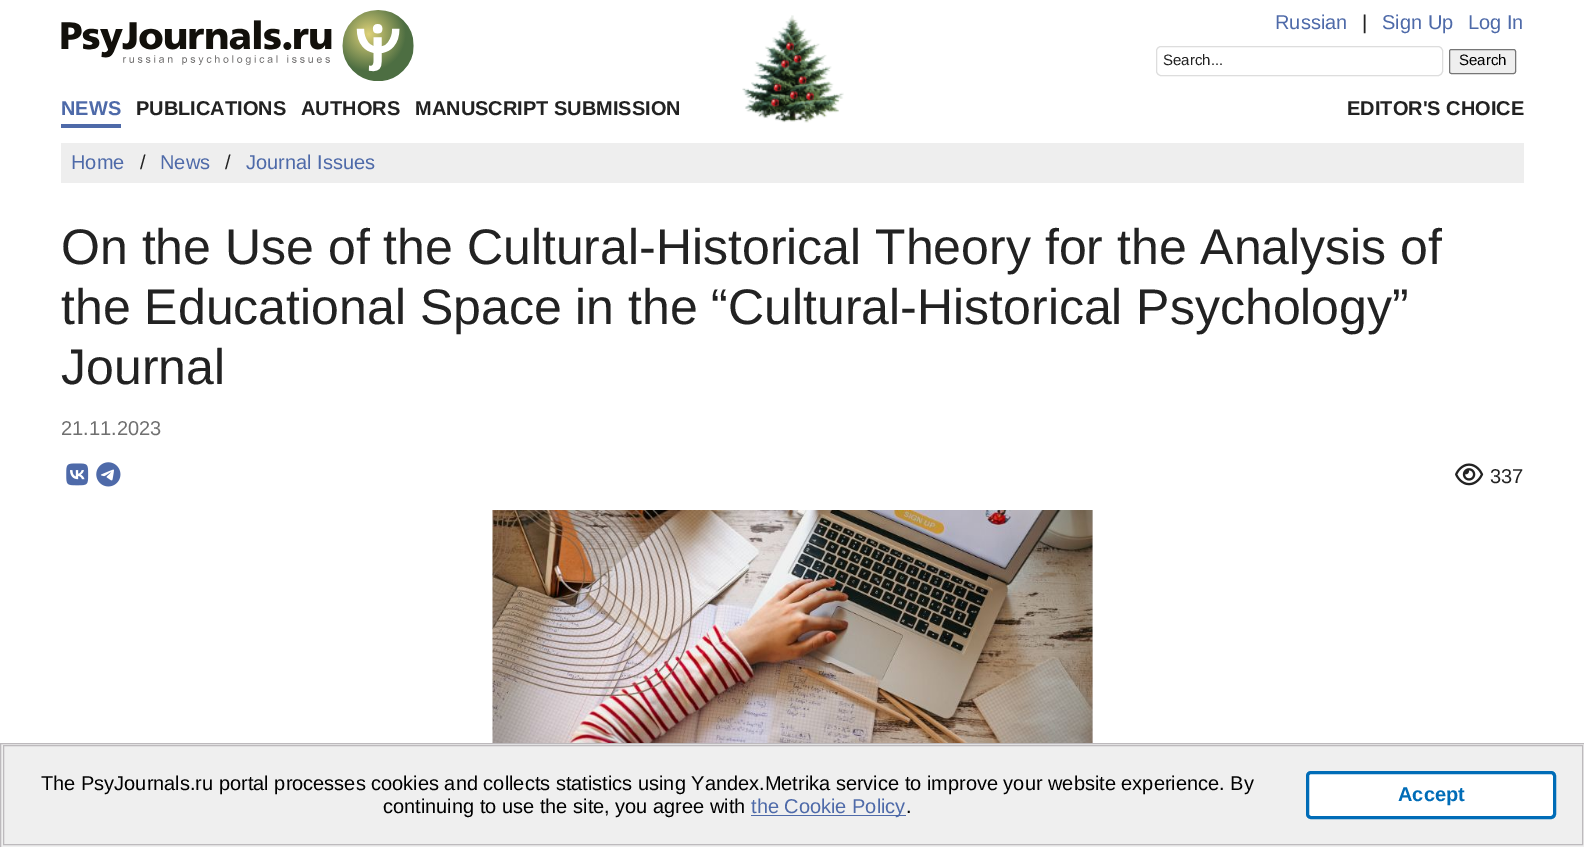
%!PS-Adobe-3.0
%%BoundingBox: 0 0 1584 847
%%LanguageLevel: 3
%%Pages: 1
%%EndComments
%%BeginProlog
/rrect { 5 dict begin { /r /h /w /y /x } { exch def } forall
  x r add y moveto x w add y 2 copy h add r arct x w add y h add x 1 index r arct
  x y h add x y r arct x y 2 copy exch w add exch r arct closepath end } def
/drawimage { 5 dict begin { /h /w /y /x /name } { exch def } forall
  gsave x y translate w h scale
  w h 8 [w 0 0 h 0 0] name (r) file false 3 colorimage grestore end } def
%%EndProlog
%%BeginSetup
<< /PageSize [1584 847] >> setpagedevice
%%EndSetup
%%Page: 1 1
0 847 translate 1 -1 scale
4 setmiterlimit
1 setgray
0 0 1584 847 rectfill
(images/1.raw) 742 15 102 108 drawimage
(images/2.raw) 61 10 353 71 drawimage
0.867 setgray
1156.5 46.5 286 29 4.5 rrect stroke
0.937 setgray
1449.5 49.5 66 24 2 rrect gsave fill grestore
0.463 setgray
stroke
0.306 0.416 0.663 setrgbcolor
61 124 60 4 rectfill
0.933 setgray
61 143 1463 40 rectfill
(images/3.raw) 66 463 23 23 drawimage
(images/4.raw) 96 462 25 25 drawimage
(images/5.raw) 1455 463 29 23 drawimage
0.867 setgray
1092 510 1 233 rectfill
(images/6.raw) 492 510 601 233 drawimage
0.937 setgray
newpath 0.5 743.5 moveto 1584.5 743.5 lineto 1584.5 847.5 lineto 0.5 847.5 lineto closepath gsave fill grestore
0.741 0.729 0.741 setrgbcolor
stroke
3.5 745.5 1579 99 rectstroke
0.306 0.416 0.663 setrgbcolor
751 815 155 1 rectfill
1 setgray
1307.5 772.5 247 45 3.5 rrect gsave fill grestore
0 0.424 0.718 setrgbcolor
3 setlinewidth
stroke
/LiberationSans-Regular [20 0 0 -20 0 0] selectfont
0.306 0.416 0.663 setrgbcolor
1275 29 moveto (Russian) show
0.133 setgray
1362 29 moveto (|) show
0.306 0.416 0.663 setrgbcolor
1382 29 moveto (Sign Up) show
1468 29 moveto (Log In) show
/LiberationSans-Regular [15 0 0 -15 0 0] selectfont
0.133 setgray
1163 65 moveto (Search...) show
0 setgray
1459 65 moveto (Search) show
/LiberationSans-Bold [20 0 0 -20 0 0] selectfont
0.306 0.416 0.663 setrgbcolor
61 115 moveto (NEWS) show
0.133 setgray
136 115 moveto (PUBLICATIONS) show
301 115 moveto (AUTHORS) show
415 115 moveto (MANUSCRIPT SUBMISSION) show
1347 115 moveto (EDITOR'S CHOICE) show
/LiberationSans-Regular [20 0 0 -20 0 0] selectfont
0.306 0.416 0.663 setrgbcolor
71 169 moveto (Home) show
0.133 setgray
140 169 moveto (/) show
0.306 0.416 0.663 setrgbcolor
160 169 moveto (News) show
0.133 setgray
225 169 moveto (/) show
0.306 0.416 0.663 setrgbcolor
246 169 moveto (Journal Issues) show
/LiberationSans-Regular [50 0 0 -50 0 0] selectfont
0.133 setgray
61 264 moveto (On the Use of the Cultural-Historical Theory for the Analysis of) show
61 324 moveto (the Educational Space in the “Cultural-Historical Psychology”) show
61 384 moveto (Journal) show
/LiberationSans-Regular [20 0 0 -20 0 0] selectfont
0.439 setgray
61 435 moveto (21.11.2023) show
0.133 setgray
1490 483 moveto (337) show
0 setgray
41 790 moveto (The PsyJournals.ru portal processes cookies and collects statistics using Yandex.Metrika service to improve your website experience. By) show
383 813 moveto (continuing to use the site, you agree with) show
0.306 0.416 0.663 setrgbcolor
751 813 moveto (the Cookie Policy) show
0 setgray
906 813 moveto (.) show
/LiberationSans-Bold [20 0 0 -20 0 0] selectfont
0 0.424 0.718 setrgbcolor
1398 801 moveto (Accept) show
showpage
%%EOF
